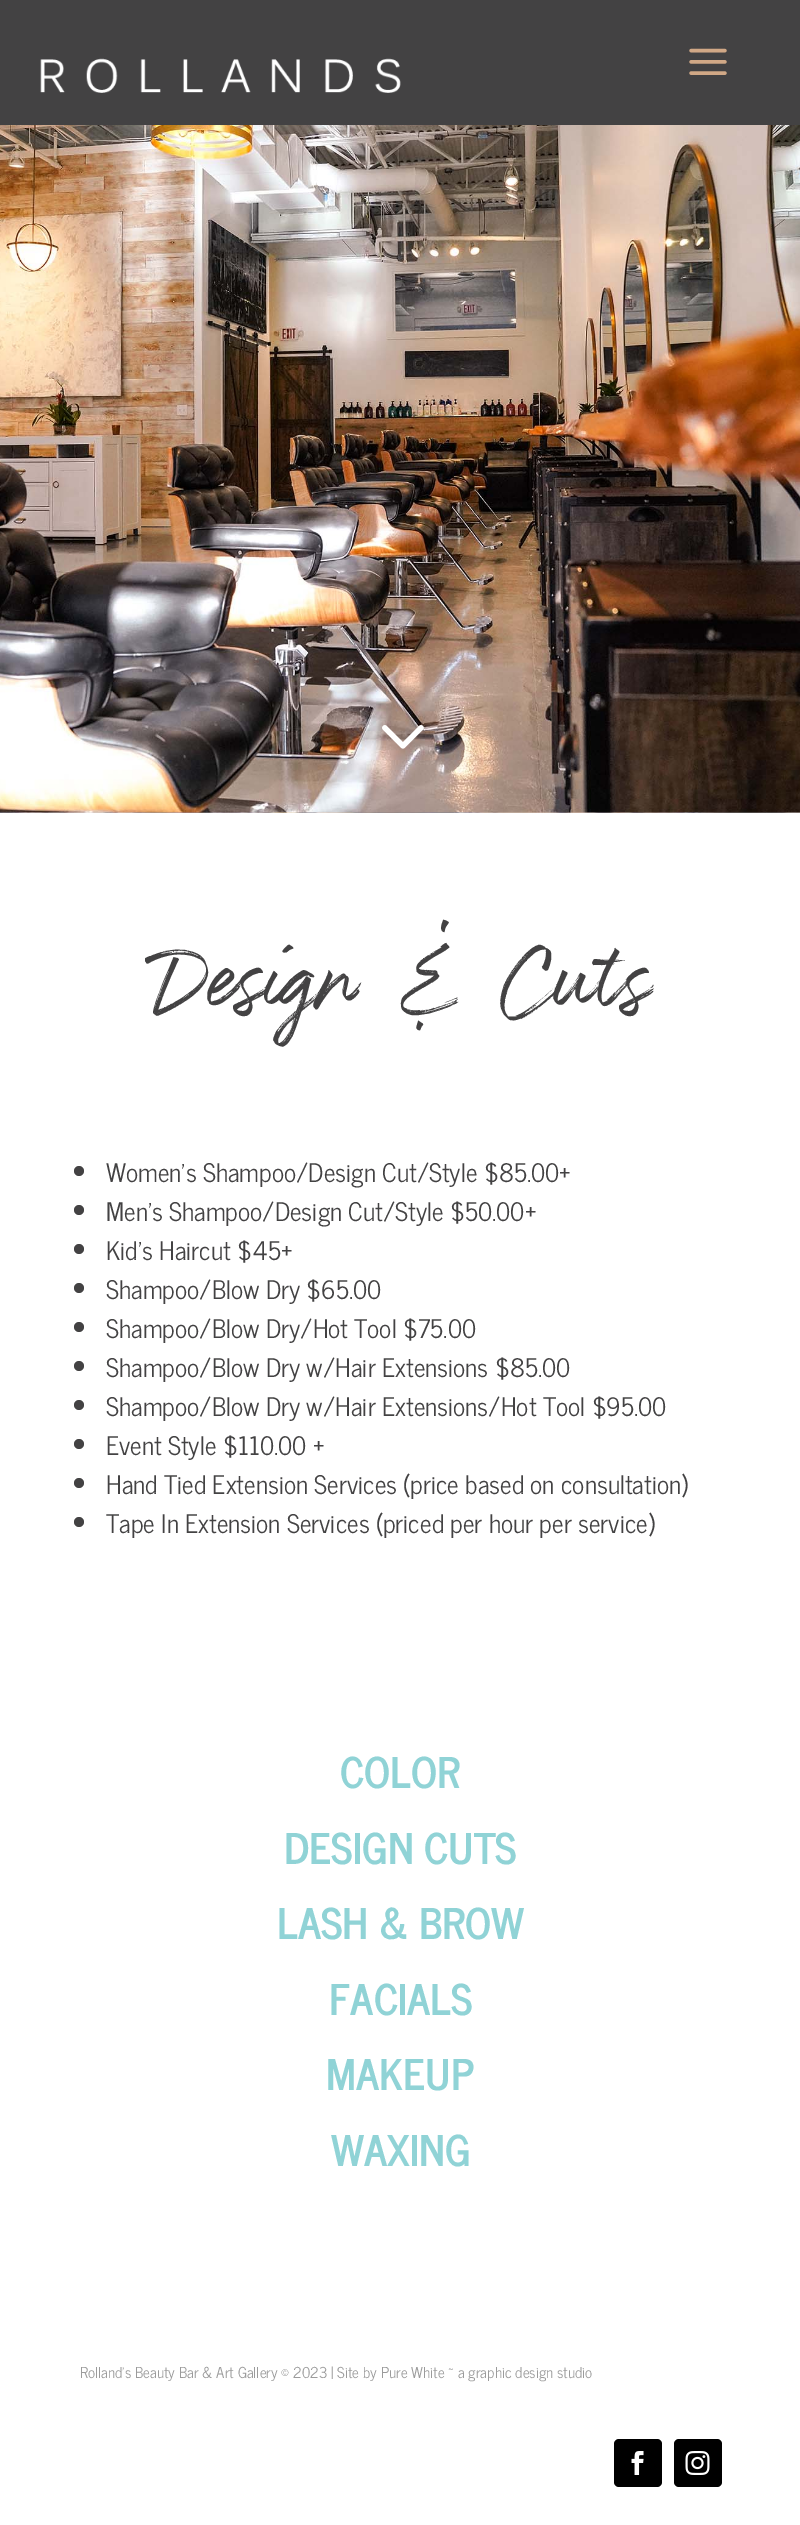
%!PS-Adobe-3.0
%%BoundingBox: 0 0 800 2525
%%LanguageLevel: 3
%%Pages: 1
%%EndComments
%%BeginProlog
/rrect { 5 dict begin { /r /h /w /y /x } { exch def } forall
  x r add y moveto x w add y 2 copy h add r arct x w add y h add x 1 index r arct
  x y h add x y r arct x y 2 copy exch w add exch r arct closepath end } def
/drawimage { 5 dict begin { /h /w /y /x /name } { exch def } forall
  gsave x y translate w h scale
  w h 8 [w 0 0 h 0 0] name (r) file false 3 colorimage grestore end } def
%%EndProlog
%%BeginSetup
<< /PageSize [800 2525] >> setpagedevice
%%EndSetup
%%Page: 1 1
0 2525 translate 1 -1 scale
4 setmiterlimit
1 setgray
0 0 800 2525 rectfill
0.263 0.259 0.263 setrgbcolor
0 0 800 125 rectfill
(images/1.raw) 40 58 361 35 drawimage
(images/2.raw) 689 48 38 27 drawimage
(images/5.raw) 0 812 800 1 drawimage
(images/3.raw) 0 125 800 688 drawimage
(images/4.raw) 382 725 42 24 drawimage
newpath 79 1171 5 0 360 arc closepath fill
newpath 79 1210 5 0 360 arc closepath fill
newpath 79 1249 5 0 360 arc closepath fill
newpath 79 1288 5 0 360 arc closepath fill
newpath 79 1327 5 0 360 arc closepath fill
newpath 79 1366 5 0 360 arc closepath fill
newpath 79 1405 5 0 360 arc closepath fill
newpath 79 1444 5 0 360 arc closepath fill
newpath 79 1483 5 0 360 arc closepath fill
newpath 79 1522 5 0 360 arc closepath fill
0 setgray
614 2439 48 48 5 rrect fill
(images/6.raw) 631 2451 13 24 drawimage
674 2439 48 48 5 rrect fill
(images/7.raw) 685 2451 25 24 drawimage
/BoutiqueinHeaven-Regular [97.5 0 0 -97.5 0 0] selectfont
0.263 0.259 0.263 setrgbcolor
145 1002 moveto (Design & Cuts) show
/NewsCycle-Regular [25.5 0 0 -25.5 0 0] selectfont
106 1182 moveto (Women’s Shampoo/Design Cut/Style $85.00+) show
106 1221 moveto (Men’s Shampoo/Design Cut/Style $50.00+) show
106 1260 moveto (Kid's Haircut $45+) show
106 1299 moveto (Shampoo/Blow Dry $65.00) show
106 1338 moveto (Shampoo/Blow Dry/Hot Tool $75.00) show
106 1377 moveto (Shampoo/Blow Dry w/Hair Extensions $85.00) show
106 1416 moveto (Shampoo/Blow Dry w/Hair Extensions/Hot Tool $95.00) show
106 1455 moveto (Event Style $110.00 +) show
106 1494 moveto (Hand Tied Extension Services \(price based on consultation\)) show
106 1533 moveto (Tape In Extension Services \(priced per hour per service\)) show
/NewsCycle-Bold [42 0 0 -42 0 0] selectfont
0.565 0.827 0.839 setrgbcolor
340 1788 moveto (COLOR) show
284 1864 moveto (DESIGN CUTS) show
277 1939 moveto (LASH & BROW) show
329 2015 moveto (FACIALS) show
326 2090 moveto (MAKEUP) show
331 2166 moveto (WAXING) show
/NewsCycle-Regular [15 0 0 -15 0 0] selectfont
0.608 setgray
80 2378 moveto (Rolland’s Beauty Bar & Art Gallery © 2023 | Site by Pure White ~ a graphic design studio) show
showpage
%%EOF
